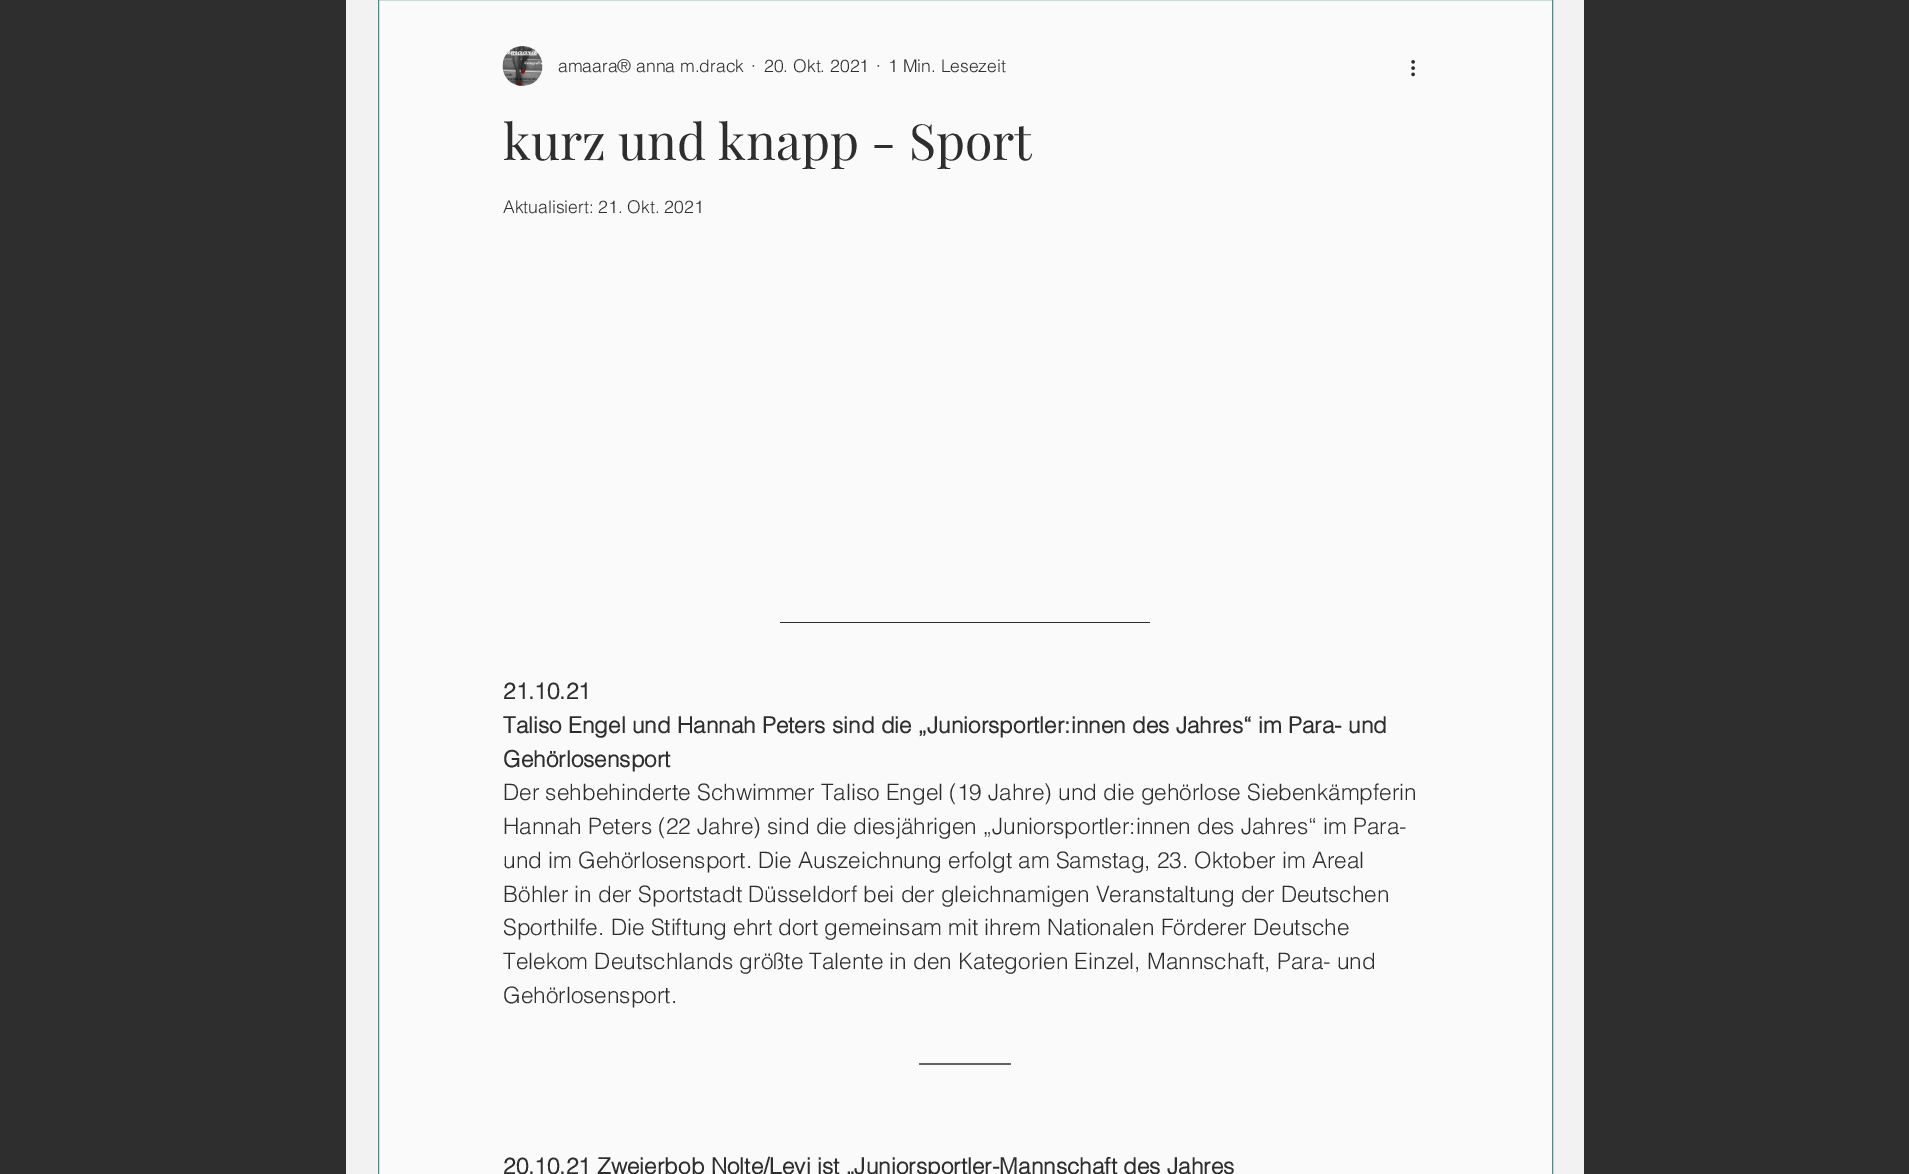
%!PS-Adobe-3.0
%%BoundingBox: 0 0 1909 1174
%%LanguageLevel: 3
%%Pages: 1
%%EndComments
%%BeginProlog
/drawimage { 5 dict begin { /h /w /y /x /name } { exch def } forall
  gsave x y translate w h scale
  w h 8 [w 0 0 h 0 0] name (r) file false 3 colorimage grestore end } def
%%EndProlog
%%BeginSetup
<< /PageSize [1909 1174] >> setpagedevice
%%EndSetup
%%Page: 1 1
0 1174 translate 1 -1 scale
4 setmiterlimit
0.18 setgray
0 0 1909 1174 rectfill
0.949 setgray
346 0 1238 1174 rectfill
0.98 setgray
newpath 378.5 -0.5 moveto 1552.5 -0.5 lineto 1552.5 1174.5 lineto 378.5 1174.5 lineto closepath gsave fill grestore
0.341 0.529 0.51 setrgbcolor
stroke
(images/1.raw) 502 46 41 40 drawimage
(images/2.raw) 1411 60 4 17 drawimage
0.18 setgray
780 622 370 1 rectfill
1.2 setlinewidth
newpath 919 1064 moveto 1011 1064 lineto stroke
/helvetica-Light [17.5 0 0 -17.5 0 0] selectfont
558 72 moveto (amaara® anna m.drack) show
751 72 moveto (·) show
764 72 moveto (20. Okt. 2021) show
876 72 moveto (·) show
888 72 moveto (1 Min. Lesezeit) show
/PlayfairDisplay-Regular [50 0 0 -50 0 0] selectfont
503 160 moveto (kurz und knapp - Sport) show
/helvetica-Light [17.5 0 0 -17.5 0 0] selectfont
503 213 moveto (Aktualisiert: 21. Okt. 2021) show
/helvetica-Bold [22.5 0 0 -22.5 0 0] selectfont
503 699 moveto (21.10.21) show
503 733 moveto (Taliso Engel und Hannah Peters sind die „Juniorsportler:innen des Jahres“ im Para- und) show
503 767 moveto (Gehörlosensport) show
/helvetica-Light [22.5 0 0 -22.5 0 0] selectfont
503 800 moveto (Der sehbehinderte Schwimmer Taliso Engel \(19 Jahre\) und die gehörlose Siebenkämpferin) show
503 834 moveto (Hannah Peters \(22 Jahre\) sind die diesjährigen „Juniorsportler:innen des Jahres“ im Para-) show
503 868 moveto (und im Gehörlosensport. Die Auszeichnung erfolgt am Samstag, 23. Oktober im Areal) show
503 902 moveto (Böhler in der Sportstadt Düsseldorf bei der gleichnamigen Veranstaltung der Deutschen) show
503 935 moveto (Sporthilfe. Die Stiftung ehrt dort gemeinsam mit ihrem Nationalen Förderer Deutsche) show
503 969 moveto (Telekom Deutschlands größte Talente in den Kategorien Einzel, Mannschaft, Para- und) show
503 1003 moveto (Gehörlosensport.) show
/helvetica-Bold [22.5 0 0 -22.5 0 0] selectfont
503 1174 moveto (20.10.21 Zweierbob Nolte/Levi ist „Juniorsportler-Mannschaft des Jahres) show
showpage
%%EOF
